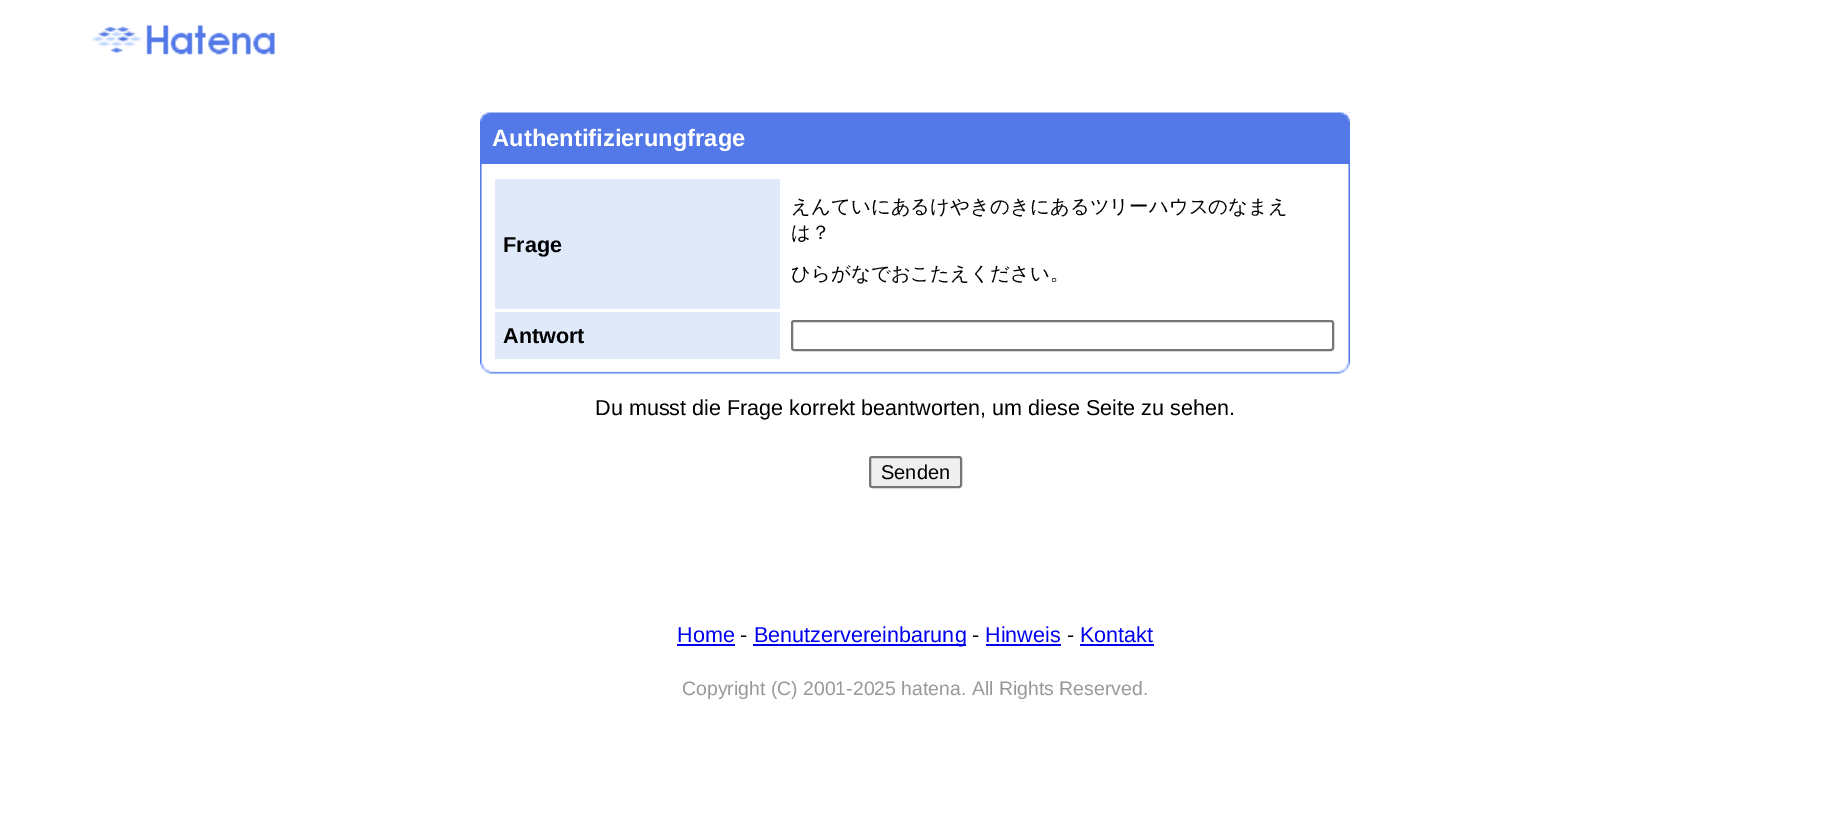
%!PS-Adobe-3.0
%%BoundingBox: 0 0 1830 832
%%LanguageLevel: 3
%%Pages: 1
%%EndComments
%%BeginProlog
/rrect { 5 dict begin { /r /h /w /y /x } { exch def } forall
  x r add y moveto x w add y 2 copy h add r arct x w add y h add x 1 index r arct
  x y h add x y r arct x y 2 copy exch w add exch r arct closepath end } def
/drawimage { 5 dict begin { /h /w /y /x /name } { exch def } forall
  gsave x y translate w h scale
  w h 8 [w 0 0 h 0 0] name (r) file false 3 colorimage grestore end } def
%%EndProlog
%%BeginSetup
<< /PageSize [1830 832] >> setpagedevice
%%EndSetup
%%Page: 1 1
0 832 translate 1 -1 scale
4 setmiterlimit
1 setgray
0 0 1830 832 rectfill
(images/1.raw) 91 25 184 30 drawimage
(images/2.raw) 480 112 870 262 drawimage
0.322 0.475 0.906 setrgbcolor
481 122 868 42 rectfill
(images/3.raw) 480 112 870 10 drawimage
0.878 0.914 0.98 setrgbcolor
495 179 285 130 rectfill
495 312 285 47 rectfill
0.463 setgray
2 setlinewidth
792 321 541 29 2 rrect stroke
0.937 setgray
870 457 91 30 2 rrect gsave fill grestore
0.463 setgray
stroke
0 0 0.933 setrgbcolor
677 644 58 2 rectfill
753 644 213 2 rectfill
986 644 75 2 rectfill
1080 644 74 2 rectfill
/LiberationSans-Bold [23.75 0 0 -23.75 0 0] selectfont
1 setgray
492 146 moveto (Authentifizierungfrage) show
/LiberationSans-Bold [21.6 0 0 -21.6 0 0] selectfont
0 setgray
503 252 moveto (Frage) show
/WenQuanYiZenHei-Medium [19.45 0 0 -19.45 0 0] selectfont
791 213 moveto (えんていにあるけやきのきにあるツリーハウスのなまえ) show
791 239 moveto (は？) show
791 280 moveto (ひらがなでおこたえください。) show
/LiberationSans-Bold [21.6 0 0 -21.6 0 0] selectfont
503 343 moveto (Antwort) show
/LiberationSans-Regular [21.6 0 0 -21.6 0 0] selectfont
595 415 moveto (Du musst die Frage korrekt beantworten, um diese Seite zu sehen.) show
/LiberationSans-Regular [20 0 0 -20 0 0] selectfont
881 479 moveto (Senden) show
/LiberationSans-Regular [21.6 0 0 -21.6 0 0] selectfont
0 0 0.933 setrgbcolor
677 642 moveto (Home) show
0 setgray
740 642 moveto (-) show
0 0 0.933 setrgbcolor
754 642 moveto (Benutzervereinbarung) show
0 setgray
972 642 moveto (-) show
0 0 0.933 setrgbcolor
985 642 moveto (Hinweis) show
0 setgray
1067 642 moveto (-) show
0 0 0.933 setrgbcolor
1080 642 moveto (Kontakt) show
/LiberationSans-Regular [19.45 0 0 -19.45 0 0] selectfont
0.6 setgray
682 695 moveto (Copyright \(C\) 2001-2025 hatena. All Rights Reserved.) show
showpage
%%EOF
